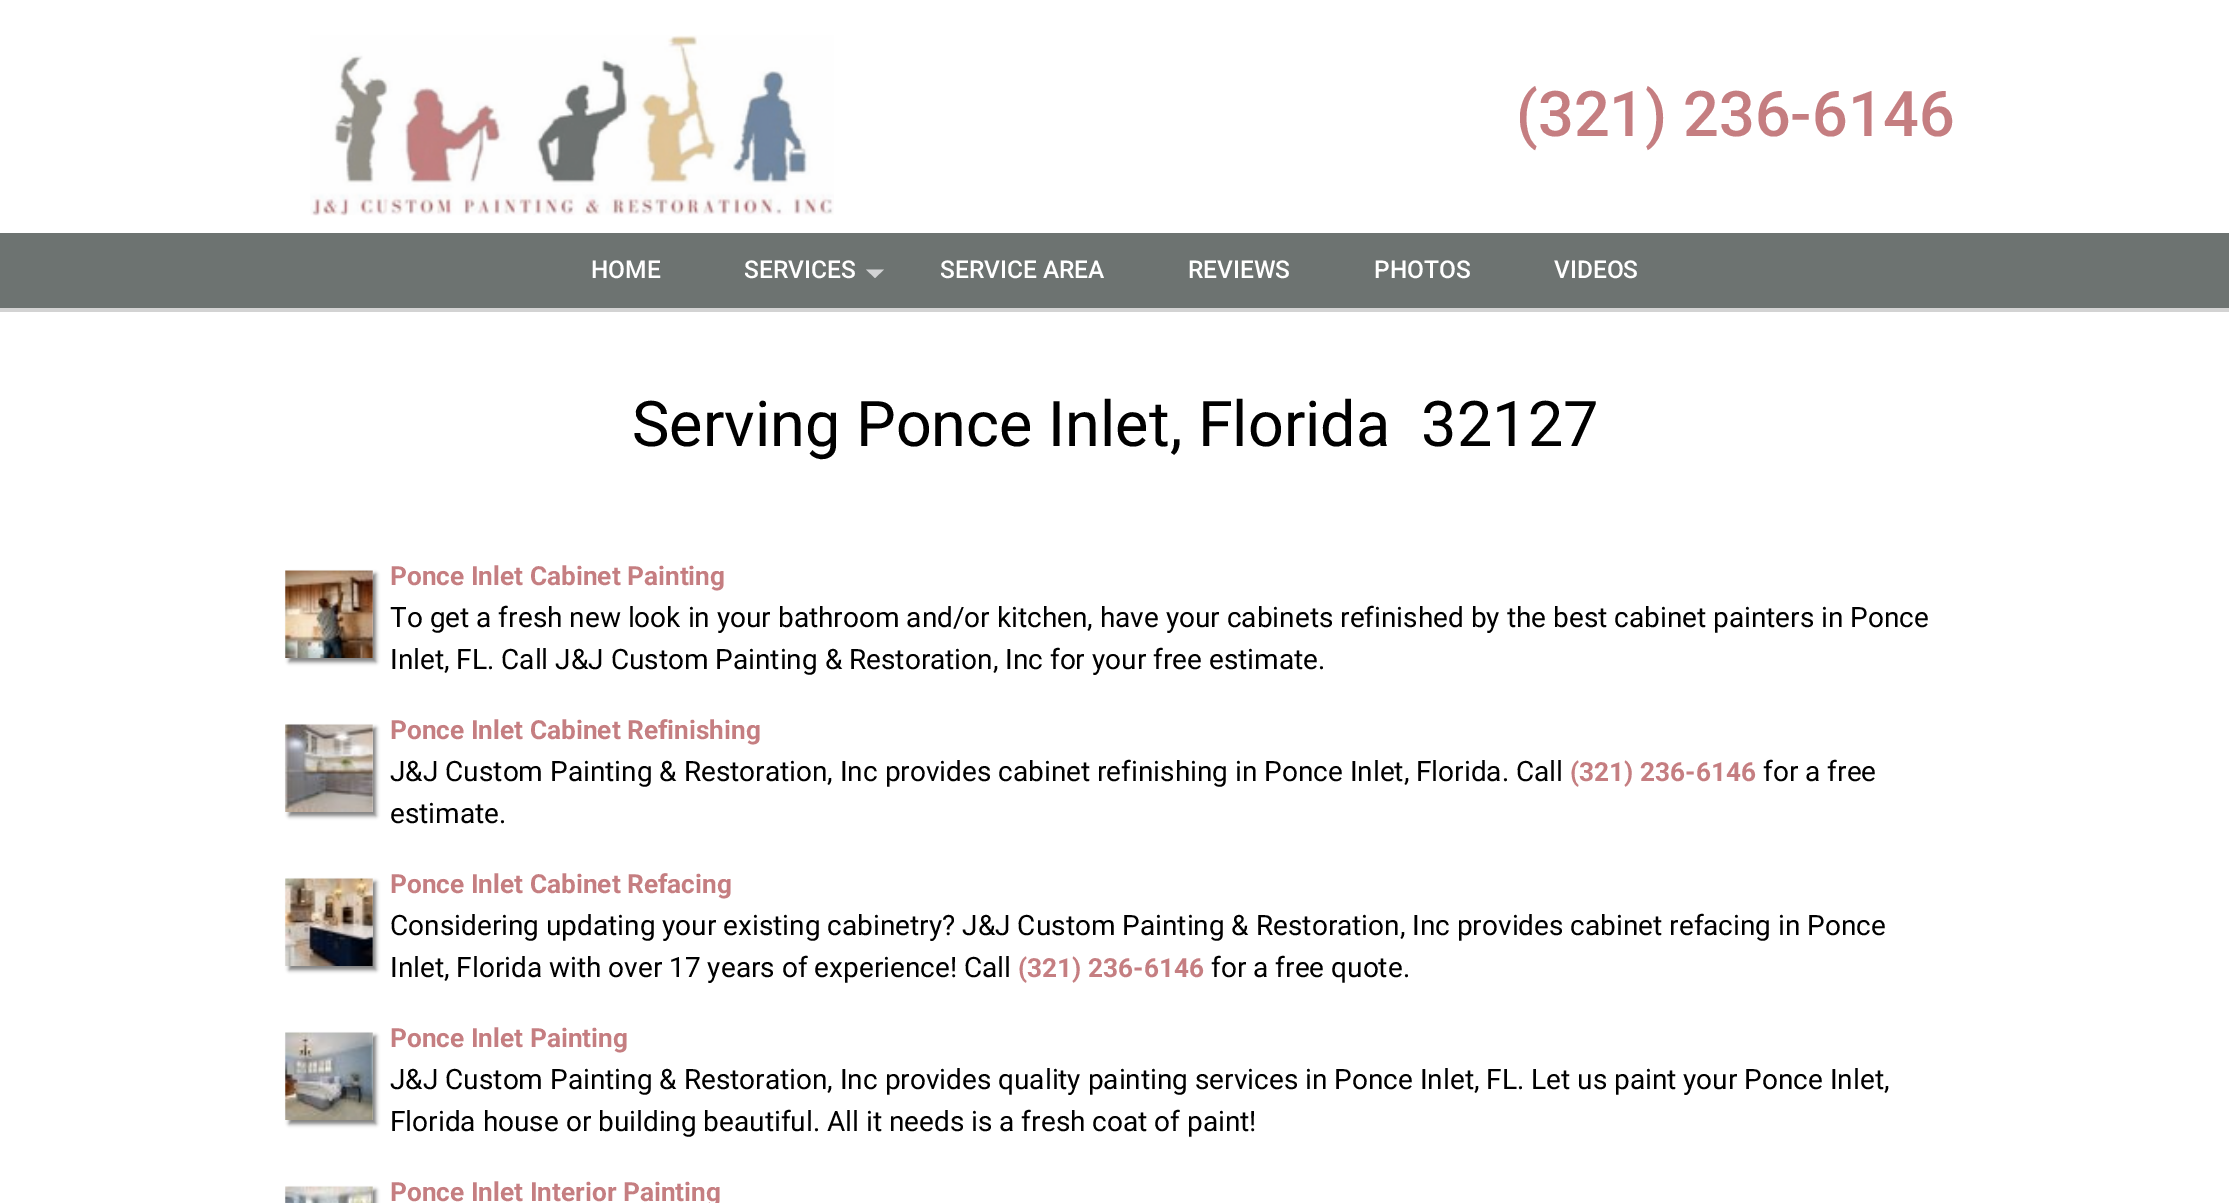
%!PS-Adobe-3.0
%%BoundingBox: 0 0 2229 1203
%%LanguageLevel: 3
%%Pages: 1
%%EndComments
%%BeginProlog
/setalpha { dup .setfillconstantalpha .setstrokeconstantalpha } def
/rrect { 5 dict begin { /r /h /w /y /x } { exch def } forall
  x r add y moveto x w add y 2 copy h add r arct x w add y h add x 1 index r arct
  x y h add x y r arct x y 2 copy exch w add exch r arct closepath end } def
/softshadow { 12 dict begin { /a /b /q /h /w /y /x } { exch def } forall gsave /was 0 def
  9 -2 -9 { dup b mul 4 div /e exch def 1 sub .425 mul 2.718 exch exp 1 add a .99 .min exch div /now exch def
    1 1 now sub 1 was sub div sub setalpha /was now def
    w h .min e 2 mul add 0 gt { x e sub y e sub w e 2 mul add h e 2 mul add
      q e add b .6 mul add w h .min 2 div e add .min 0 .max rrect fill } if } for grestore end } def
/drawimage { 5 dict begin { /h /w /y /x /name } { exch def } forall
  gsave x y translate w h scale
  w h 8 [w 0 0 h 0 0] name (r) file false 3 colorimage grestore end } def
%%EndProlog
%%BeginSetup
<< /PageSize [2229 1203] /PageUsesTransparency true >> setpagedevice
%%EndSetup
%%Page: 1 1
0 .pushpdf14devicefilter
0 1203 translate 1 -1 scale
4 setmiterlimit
1 setgray
0 0 2229 1203 rectfill
0.827 setgray
newpath 0 308 moveto 0 312 lineto 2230 312 lineto 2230 4 lineto 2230 308 lineto closepath fill
(images/1.raw) 310 35 524 181 drawimage
0.427 0.451 0.443 setrgbcolor
0 233 2229 75 rectfill
0.824 0.827 0.831 setrgbcolor
newpath 866 269.5 moveto 884 269.5 lineto 875 278 lineto closepath fill
0.502 setgray
289 574 87 88 0 2 1 softshadow
(images/2.raw) 285 570 88 88 drawimage
289 728 87 88 0 2 1 softshadow
(images/3.raw) 285 724 88 88 drawimage
289 882 87 88 0 2 1 softshadow
(images/4.raw) 285 878 88 88 drawimage
289 1036 87 88 0 2 1 softshadow
(images/5.raw) 285 1032 88 88 drawimage
289 1190 87 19 0 2 1 softshadow
(images/6.raw) 285 1186 88 17 drawimage
/Roboto-Medium [63 0 0 -63 0 0] selectfont
0.773 0.494 0.506 setrgbcolor
1516 136 moveto (\(321\) 236-6146) show
/Roboto-Medium [24.5 0 0 -24.5 0 0] selectfont
1 setgray
591 278 moveto (HOME) show
744 278 moveto (SERVICES) show
940 278 moveto (SERVICE AREA) show
1188 278 moveto (REVIEWS) show
1374 278 moveto (PHOTOS) show
1554 278 moveto (VIDEOS) show
/Roboto-Regular [63 0 0 -63 0 0] selectfont
0 setgray
632 446 moveto (Serving Ponce Inlet, Florida  32127) show
/Roboto-Bold [26.25 0 0 -26.25 0 0] selectfont
0.773 0.494 0.506 setrgbcolor
390 585 moveto (Ponce Inlet Cabinet Painting) show
/Roboto-Regular [28 0 0 -28 0 0] selectfont
0 setgray
390 627 moveto (To get a fresh new look in your bathroom and/or kitchen, have your cabinets refinished by the best cabinet painters in Ponce) show
390 669 moveto (Inlet, FL. Call J&J Custom Painting & Restoration, Inc for your free estimate.) show
/Roboto-Bold [26.25 0 0 -26.25 0 0] selectfont
0.773 0.494 0.506 setrgbcolor
390 739 moveto (Ponce Inlet Cabinet Refinishing) show
/Roboto-Regular [28 0 0 -28 0 0] selectfont
0 setgray
390 781 moveto (J&J Custom Painting & Restoration, Inc provides cabinet refinishing in Ponce Inlet, Florida. Call) show
/Roboto-Bold [26.25 0 0 -26.25 0 0] selectfont
0.773 0.494 0.506 setrgbcolor
1570 781 moveto (\(321\) 236-6146) show
/Roboto-Regular [28 0 0 -28 0 0] selectfont
0 setgray
1763 781 moveto (for a free) show
390 823 moveto (estimate.) show
/Roboto-Bold [26.25 0 0 -26.25 0 0] selectfont
0.773 0.494 0.506 setrgbcolor
390 893 moveto (Ponce Inlet Cabinet Refacing) show
/Roboto-Regular [28 0 0 -28 0 0] selectfont
0 setgray
390 935 moveto (Considering updating your existing cabinetry? J&J Custom Painting & Restoration, Inc provides cabinet refacing in Ponce) show
390 977 moveto (Inlet, Florida with over 17 years of experience! Call) show
/Roboto-Bold [26.25 0 0 -26.25 0 0] selectfont
0.773 0.494 0.506 setrgbcolor
1018 977 moveto (\(321\) 236-6146) show
/Roboto-Regular [28 0 0 -28 0 0] selectfont
0 setgray
1211 977 moveto (for a free quote.) show
/Roboto-Bold [26.25 0 0 -26.25 0 0] selectfont
0.773 0.494 0.506 setrgbcolor
390 1047 moveto (Ponce Inlet Painting) show
/Roboto-Regular [28 0 0 -28 0 0] selectfont
0 setgray
390 1089 moveto (J&J Custom Painting & Restoration, Inc provides quality painting services in Ponce Inlet, FL. Let us paint your Ponce Inlet,) show
390 1131 moveto (Florida house or building beautiful. All it needs is a fresh coat of paint!) show
/Roboto-Bold [26.25 0 0 -26.25 0 0] selectfont
0.773 0.494 0.506 setrgbcolor
390 1201 moveto (Ponce Inlet Interior Painting) show
.poppdf14devicefilter showpage
%%EOF
